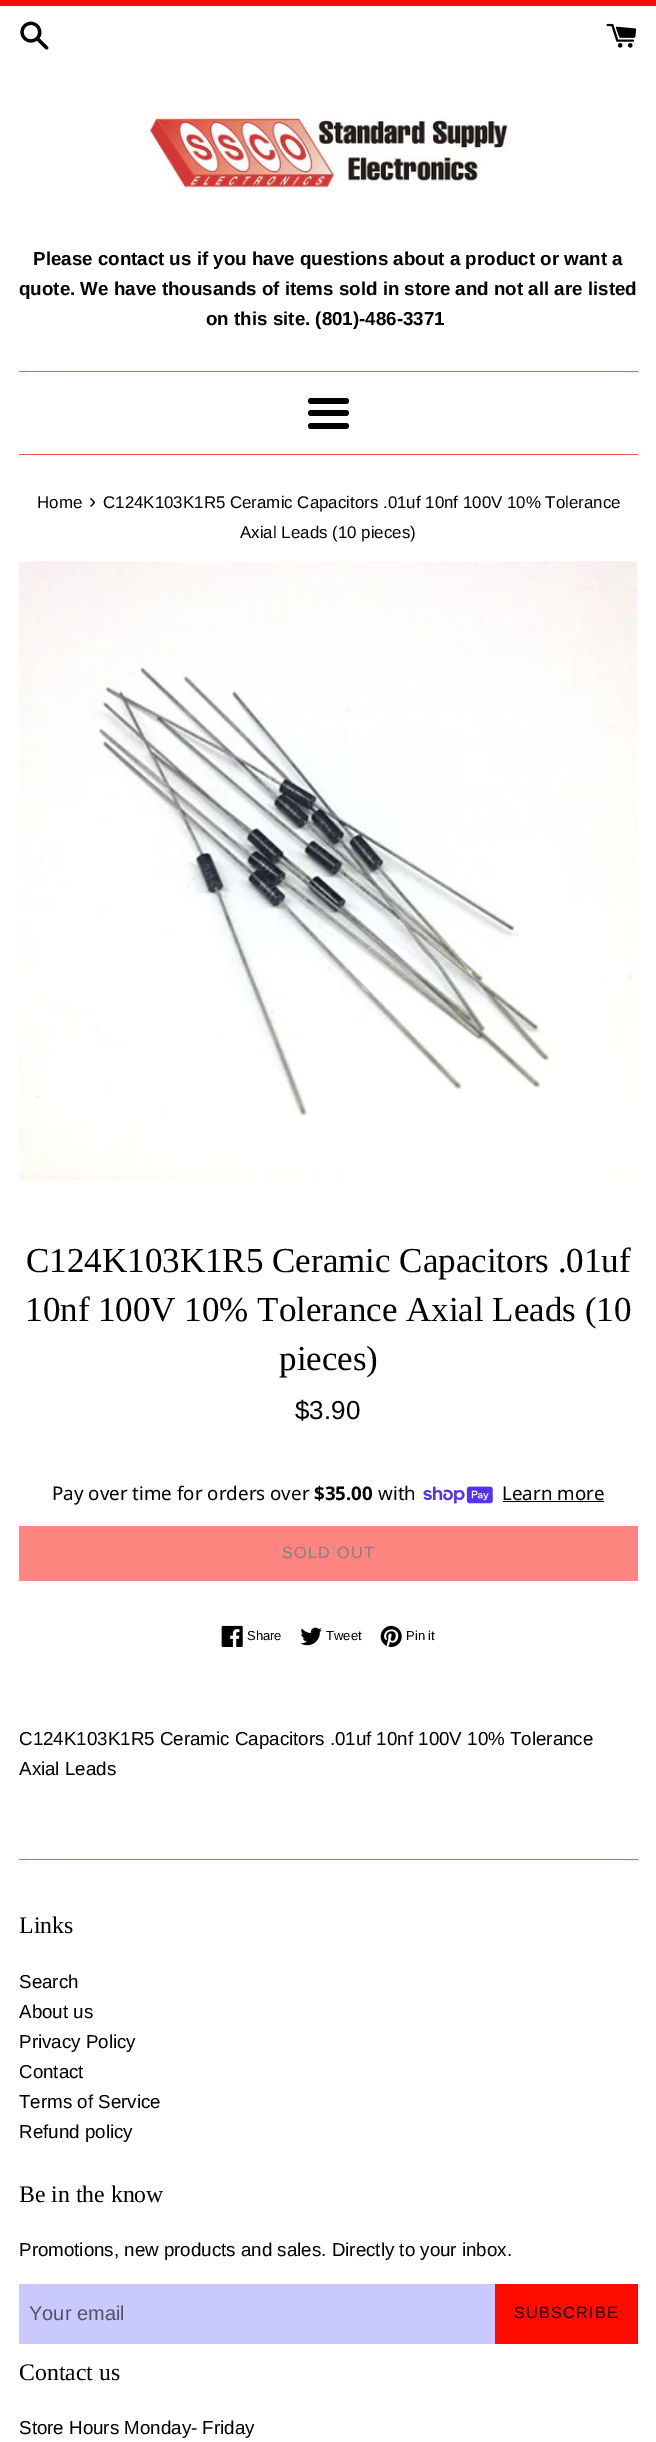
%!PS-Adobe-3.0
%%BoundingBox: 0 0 656 2442
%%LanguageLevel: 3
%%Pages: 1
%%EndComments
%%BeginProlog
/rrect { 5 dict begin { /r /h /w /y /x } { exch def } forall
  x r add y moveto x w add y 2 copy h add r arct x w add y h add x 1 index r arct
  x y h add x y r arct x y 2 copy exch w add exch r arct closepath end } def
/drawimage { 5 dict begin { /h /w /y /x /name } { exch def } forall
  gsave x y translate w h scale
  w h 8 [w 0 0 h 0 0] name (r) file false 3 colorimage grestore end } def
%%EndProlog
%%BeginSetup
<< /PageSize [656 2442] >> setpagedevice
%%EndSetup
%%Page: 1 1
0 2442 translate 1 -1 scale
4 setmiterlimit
1 setgray
0 0 656 2442 rectfill
0.992 0.039 0 setrgbcolor
0 0 656 6 rectfill
(images/1.raw) 20 21 29 29 drawimage
(images/2.raw) 606 23 31 25 drawimage
(images/3.raw) 149 114 360 77 drawimage
0.953 0.333 0.333 setrgbcolor
19 371 619 1 rectfill
0 setgray
308 398 41 6 3 rrect fill
308 410 41 6 3 rrect fill
308 423 41 6 3 rrect fill
0.953 0.333 0.333 setrgbcolor
19 454 619 1 rectfill
(images/4.raw) 18 561 620 619 drawimage
(images/5.raw) 423 1486 70 18 drawimage
0 setgray
503 1501 101 1 rectfill
0.996 0.522 0.502 setrgbcolor
19 1526 619 55 rectfill
(images/6.raw) 221 1625 22 22 drawimage
(images/7.raw) 300 1627 22 19 drawimage
(images/8.raw) 380 1625 22 22 drawimage
0.953 0.333 0.333 setrgbcolor
19 1859 619 1 rectfill
0.792 0.788 1 setrgbcolor
19 2284 476 60 rectfill
0.992 0.039 0 setrgbcolor
495 2284 143 60 rectfill
/LiberationSans-Bold [18.75 0 0 -18.75 0 0] selectfont
0 setgray
33 265 moveto (Please contact us if you have questions about a product or want a) show
19 295 moveto (quote. We have thousands of items sold in store and not all are listed) show
206 325 moveto (on this site. \(801\)-486-3371) show
/LiberationSans-Regular [16.9 0 0 -16.9 0 0] selectfont
37 508 moveto (Home) show
/LiberationSans-Regular [21 0 0 -21 0 0] selectfont
89 508 moveto (›) show
/LiberationSans-Regular [16.9 0 0 -16.9 0 0] selectfont
103 508 moveto (C124K103K1R5 Ceramic Capacitors .01uf 10nf 100V 10% Tolerance) show
240 538 moveto (Axial Leads \(10 pieces\)) show
/LiberationSerif-Regular [35 0 0 -35 0 0] selectfont
26 1272 moveto (C124K103K1R5 Ceramic Capacitors .01uf) show
25 1321 moveto (10nf 100V 10% Tolerance Axial Leads \(10) show
279 1370 moveto (pieces\)) show
/LiberationSans-Regular [26 0 0 -26 0 0] selectfont
295 1419 moveto ($3.90) show
/NotoSans-Regular [18.75 0 0 -18.75 0 0] selectfont
52 1500 moveto (Pay over time for orders over) show
/NotoSans-Bold [18.75 0 0 -18.75 0 0] selectfont
314 1500 moveto ($35.00) show
/NotoSans-Regular [18.75 0 0 -18.75 0 0] selectfont
378 1500 moveto (with) show
502 1500 moveto (Learn more) show
/LiberationSans-Regular [16.25 0 0 -16.25 0 0] selectfont
0.502 setgray
282 1558 moveto 1.25 0 (SOLD OUT) ashow
/LiberationSans-Regular [13 0 0 -13 0 0] selectfont
0 setgray
247 1640 moveto (Share) show
326 1640 moveto (Tweet) show
406 1640 moveto (Pin it) show
/LiberationSans-Regular [18.75 0 0 -18.75 0 0] selectfont
19 1745 moveto (C124K103K1R5 Ceramic Capacitors .01uf 10nf 100V 10% Tolerance) show
19 1775 moveto (Axial Leads) show
/LiberationSerif-Regular [23.75 0 0 -23.75 0 0] selectfont
19 1933 moveto (Links) show
/LiberationSans-Regular [18.75 0 0 -18.75 0 0] selectfont
19 1988 moveto (Search) show
19 2018 moveto (About us) show
19 2048 moveto (Privacy Policy) show
19 2078 moveto (Contact) show
19 2108 moveto (Terms of Service) show
19 2138 moveto (Refund policy) show
/LiberationSerif-Regular [23.75 0 0 -23.75 0 0] selectfont
19 2202 moveto (Be in the know) show
/LiberationSans-Regular [18.75 0 0 -18.75 0 0] selectfont
19 2256 moveto (Promotions, new products and sales. Directly to your inbox.) show
/LiberationSans-Regular [20 0 0 -20 0 0] selectfont
0.318 0.314 0.4 setrgbcolor
29 2320 moveto (Your email) show
/LiberationSans-Regular [16.25 0 0 -16.25 0 0] selectfont
0 setgray
514 2318 moveto 1.25 0 (SUBSCRIBE) ashow
/LiberationSerif-Regular [23.75 0 0 -23.75 0 0] selectfont
19 2380 moveto (Contact us) show
/LiberationSans-Regular [18.75 0 0 -18.75 0 0] selectfont
19 2434 moveto (Store Hours Monday- Friday) show
showpage
%%EOF
